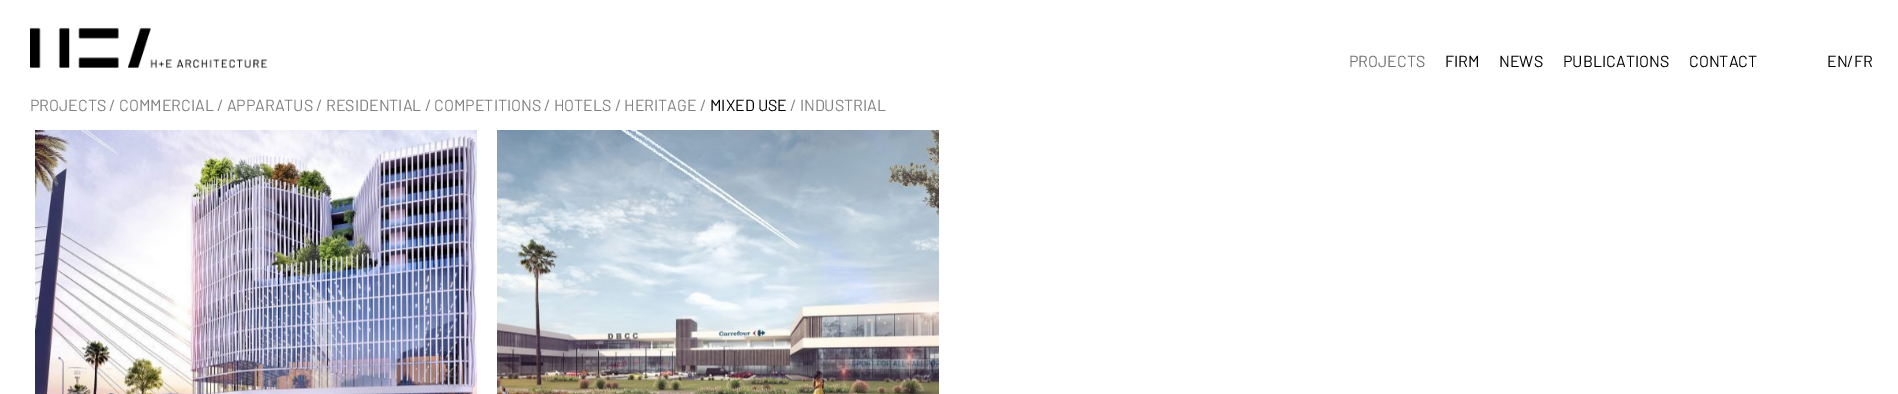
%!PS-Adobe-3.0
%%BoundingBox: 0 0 1898 394
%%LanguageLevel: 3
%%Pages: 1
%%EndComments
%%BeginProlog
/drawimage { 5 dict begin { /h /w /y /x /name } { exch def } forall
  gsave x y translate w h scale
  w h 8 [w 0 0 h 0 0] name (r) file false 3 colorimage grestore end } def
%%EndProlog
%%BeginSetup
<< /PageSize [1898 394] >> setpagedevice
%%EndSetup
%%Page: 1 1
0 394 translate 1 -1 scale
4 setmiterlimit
1 setgray
0 0 1898 394 rectfill
(images/1.raw) 30 27 237 41 drawimage
(images/2.raw) 35 130 442 264 drawimage
(images/3.raw) 497 130 442 264 drawimage
/Barlow-Regular [16 0 0 -16 0 0] selectfont
0.439 setgray
1349 67 moveto (PROJECTS) show
0 setgray
1445 67 moveto (FIRM) show
1499 67 moveto (NEWS) show
1563 67 moveto (PUBLICATIONS) show
1689 67 moveto (CONTACT) show
1827 67 moveto (EN/FR) show
0.502 setgray
30 111 moveto (PROJECTS / COMMERCIAL / APPARATUS / RESIDENTIAL / COMPETITIONS / HOTELS / HERITAGE /) show
0 setgray
710 111 moveto (MIXED USE) show
0.502 setgray
790 111 moveto (/ INDUSTRIAL) show
showpage
%%EOF
